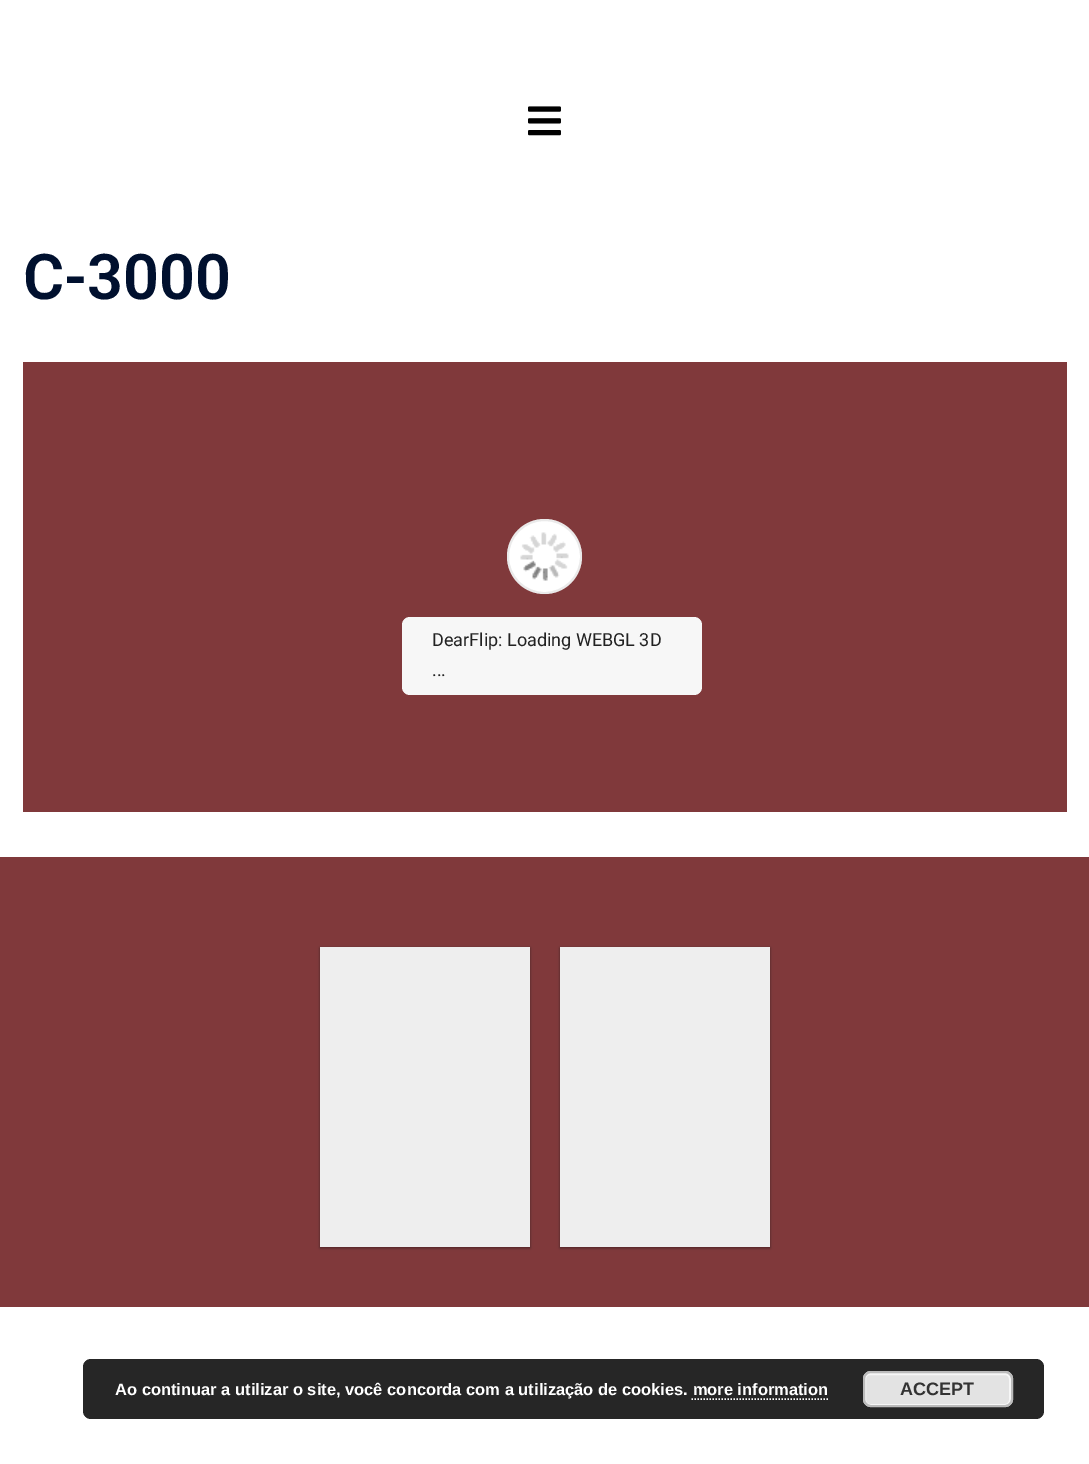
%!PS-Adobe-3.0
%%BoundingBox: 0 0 1089 1464
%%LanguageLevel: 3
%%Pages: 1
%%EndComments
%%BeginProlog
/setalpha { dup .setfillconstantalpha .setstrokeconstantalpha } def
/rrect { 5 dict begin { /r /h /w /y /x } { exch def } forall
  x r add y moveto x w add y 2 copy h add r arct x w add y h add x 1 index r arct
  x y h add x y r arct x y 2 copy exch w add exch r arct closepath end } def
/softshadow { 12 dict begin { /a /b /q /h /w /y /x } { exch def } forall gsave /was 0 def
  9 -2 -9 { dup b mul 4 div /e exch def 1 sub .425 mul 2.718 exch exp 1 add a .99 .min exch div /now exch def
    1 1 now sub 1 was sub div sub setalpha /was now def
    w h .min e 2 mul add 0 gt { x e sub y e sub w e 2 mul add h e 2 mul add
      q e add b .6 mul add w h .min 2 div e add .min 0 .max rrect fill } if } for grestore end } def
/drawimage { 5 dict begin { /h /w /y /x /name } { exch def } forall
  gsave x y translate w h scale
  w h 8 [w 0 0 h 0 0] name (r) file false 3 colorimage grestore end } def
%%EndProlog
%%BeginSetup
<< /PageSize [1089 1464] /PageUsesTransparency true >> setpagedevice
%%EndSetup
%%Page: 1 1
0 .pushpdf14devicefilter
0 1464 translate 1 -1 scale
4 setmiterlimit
1 setgray
0 0 1089 1464 rectfill
(images/1.raw) 528 106 33 30 drawimage
0.502 0.224 0.231 setrgbcolor
23 362 1044 450 rectfill
1 setgray
newpath 544.5 556.5 37.5 0 360 arc closepath fill
0.2 setalpha
0.588 setgray
2 setlinewidth
newpath 544.5 556.5 36.5 0 360 arc closepath stroke
1 setalpha
(images/2.raw) 520 532 49 49 drawimage
0.969 setgray
402 617 300 78 8 rrect fill
0.502 0.224 0.231 setrgbcolor
0 857 1089 450 rectfill
0 setgray
320 948 210 300 0 1.5 0.22 softshadow
320 948 210 300 0 1.5 0.22 softshadow
0.933 setgray
320 947 210 300 rectfill
0 setgray
560 948 210 300 0 1.5 0.22 softshadow
560 948 210 300 0 1.5 0.22 softshadow
0.933 setgray
560 947 210 300 rectfill
0.149 setgray
83 1359 961 60 8 rrect fill
0.89 setgray
863 1371 150 36 8 rrect fill
0.965 setgray
865 1374 145 31 5 rrect stroke
0.733 setgray
864 1372 148 34 7 rrect stroke
1 setgray
1.5 setlinewidth
[1.5 1.5] 0 setdash
newpath 691.5 1399 moveto 828 1399 lineto stroke
/Roboto-SemiBold [63 0 0 -63 0 0] selectfont
0 0.063 0.18 setrgbcolor
23 299 moveto (C-3000) show
/Roboto-Regular [18 0 0 -18 0 0] selectfont
0.133 setgray
432 646 moveto (DearFlip: Loading WEBGL 3D) show
432 676 moveto (...) show
/LiberationSans-Bold [16.5 0 0 -16.5 0 0] selectfont
1 setgray
115 1395 moveto (Ao continuar a utilizar o site, você concorda com a utilização de cookies. more information) show
/LiberationSans-Bold [18 0 0 -18 0 0] selectfont
0.2 setgray
900 1395 moveto (ACCEPT) show
.poppdf14devicefilter showpage
%%EOF
